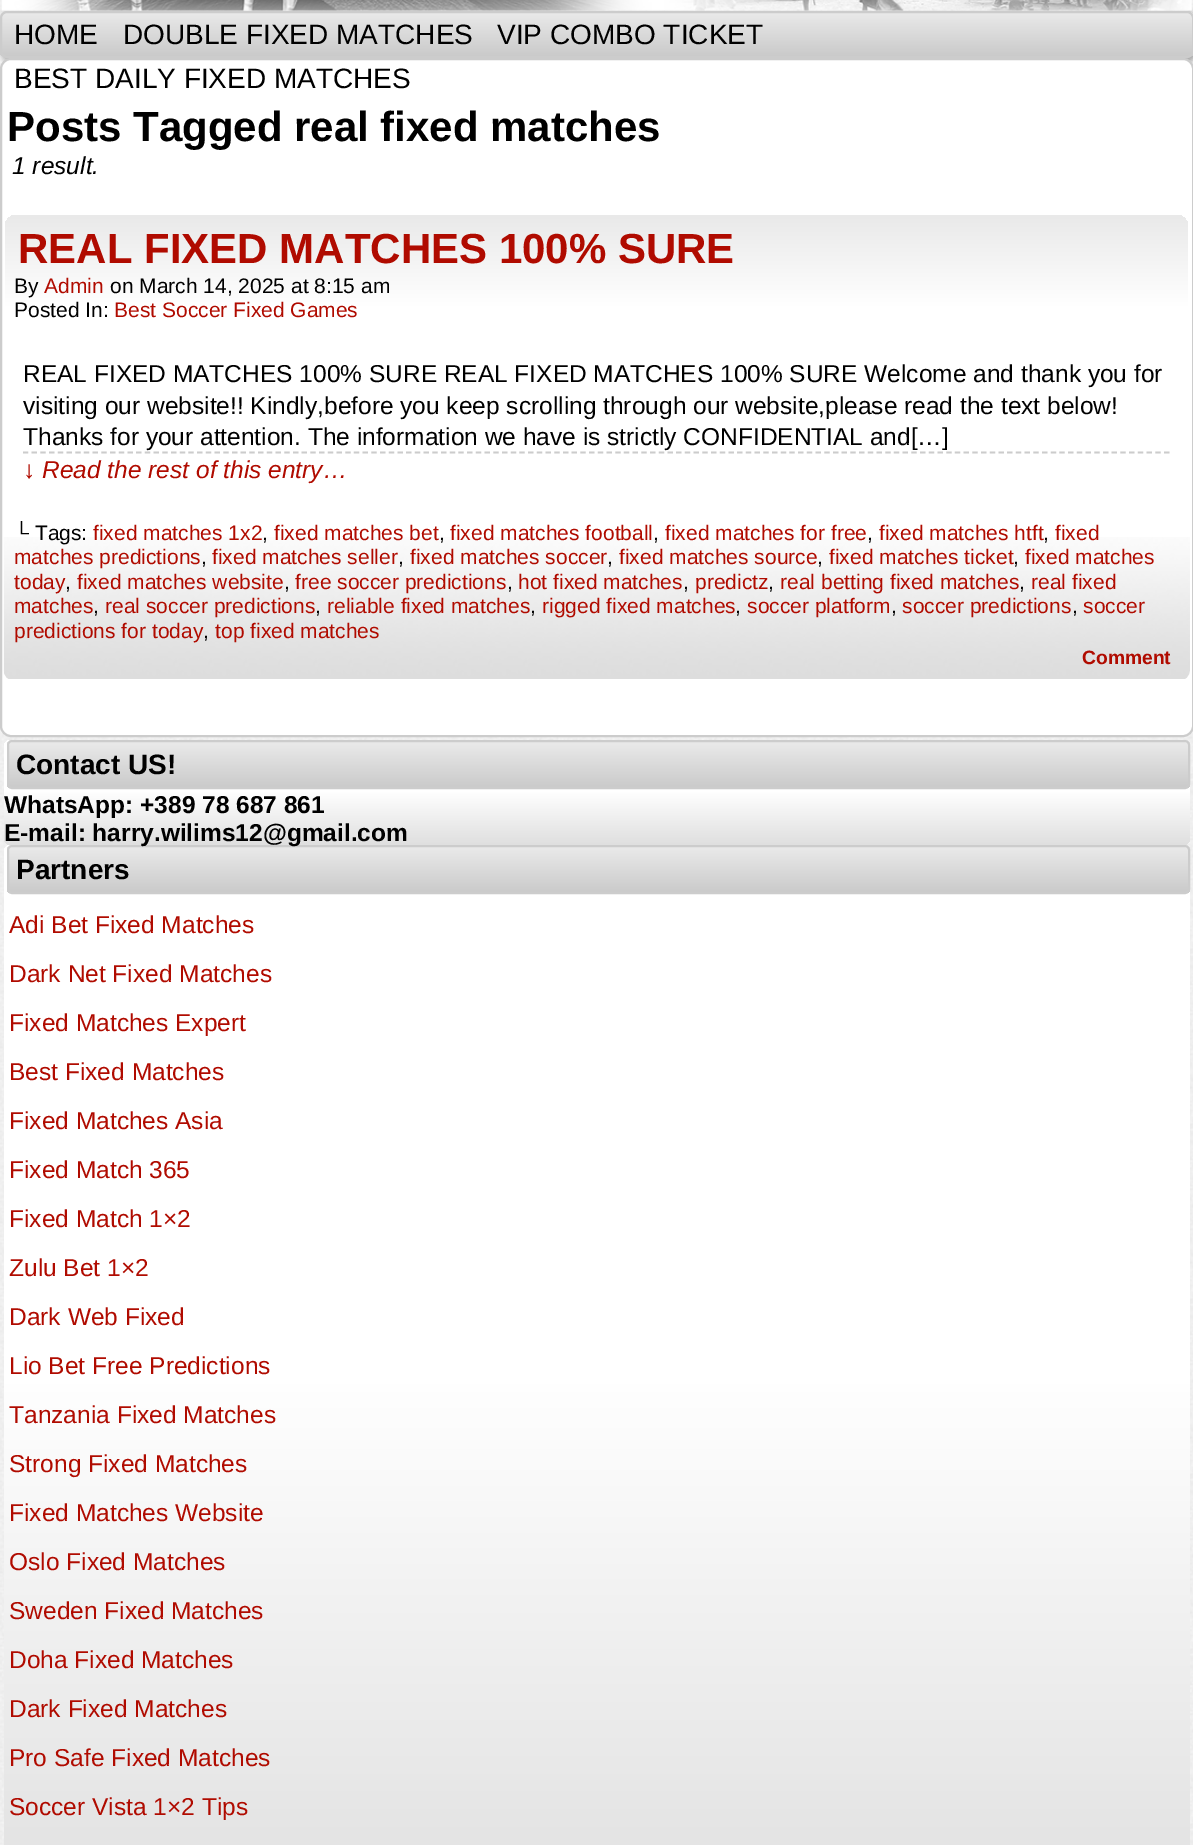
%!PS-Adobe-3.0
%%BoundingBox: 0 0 1193 1845
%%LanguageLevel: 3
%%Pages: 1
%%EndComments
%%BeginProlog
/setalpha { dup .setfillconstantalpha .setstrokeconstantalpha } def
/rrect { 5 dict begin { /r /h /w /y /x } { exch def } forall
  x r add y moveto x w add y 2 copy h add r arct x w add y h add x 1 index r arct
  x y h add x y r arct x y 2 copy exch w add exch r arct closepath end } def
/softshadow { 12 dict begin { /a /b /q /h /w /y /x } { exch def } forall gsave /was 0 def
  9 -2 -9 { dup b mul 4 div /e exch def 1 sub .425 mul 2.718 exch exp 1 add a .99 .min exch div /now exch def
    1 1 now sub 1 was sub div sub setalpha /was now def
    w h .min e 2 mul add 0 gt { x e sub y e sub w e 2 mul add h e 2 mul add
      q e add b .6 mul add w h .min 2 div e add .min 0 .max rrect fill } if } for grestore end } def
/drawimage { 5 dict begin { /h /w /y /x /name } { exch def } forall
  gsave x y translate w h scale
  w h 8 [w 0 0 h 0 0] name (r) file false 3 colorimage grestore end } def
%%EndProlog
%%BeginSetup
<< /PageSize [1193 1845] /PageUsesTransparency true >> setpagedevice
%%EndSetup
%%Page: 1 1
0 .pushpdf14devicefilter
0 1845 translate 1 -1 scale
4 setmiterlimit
1 setgray
0 0 1193 1845 rectfill
(images/1.raw) 0 0 1193 1845 drawimage
0 setgray
4 14 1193 47 7 3.5 0.2 softshadow
0.078 setgray
2 12 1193 48 7 2.5 0.2 softshadow
(images/2.raw) 1 0 1191 11 drawimage
gsave
0 11 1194 47 7 rrect clip newpath
gsave newpath 0 12 moveto 1193 12 lineto 1193 56 lineto 0 56 lineto closepath clip newpath
<< /ShadingType 2 /ColorSpace /DeviceRGB /Coords [597 12 597 56] /Extend [true true] /Function << /FunctionType 2 /Domain [0 1] /C0 [0.918 0.918 0.918] /C1 [0.792 0.792 0.792] /N 1 >> >> shfill grestore
grestore
0.8 setgray
2 setlinewidth
1 12 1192 45 6 rrect stroke
1 setgray
1 59 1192 677 10 rrect gsave fill grestore
0.8 setgray
stroke
(images/3.raw) 3 537 1187 142 drawimage
gsave 5 215 1183 116 11 rrect clip newpath
<< /ShadingType 2 /ColorSpace /DeviceRGB /Coords [597 215 597 331] /Extend [true true] /Function << /FunctionType 3 /Domain [0 1] /Functions [<< /FunctionType 2 /Domain [0 1] /C0 [0.914 0.914 0.914] /C1 [1 1 1] /N 1 >> << /FunctionType 2 /Domain [0 1] /C0 [1 1 1] /C1 [1 1 1] /N 1 >>] /Bounds [0.8] /Encode [0 1 0 1] >> >> shfill grestore
1.8 setlinewidth
[5.25 3.46] 0 setdash
newpath 23 452.5 moveto 1171 452.5 lineto stroke
gsave 4 740 1186 105 7 rrect clip newpath
<< /ShadingType 2 /ColorSpace /DeviceRGB /Coords [597 740 597 845] /Extend [true true] /Function << /FunctionType 3 /Domain [0 1] /Functions [<< /FunctionType 2 /Domain [0 1] /C0 [1 1 1] /C1 [1 1 1] /N 1 >> << /FunctionType 2 /Domain [0 1] /C0 [1 1 1] /C1 [0.875 0.875 0.875] /N 1 >>] /Bounds [0.49] /Encode [0 1 0 1] >> >> shfill grestore
gsave
7 740 1183 49 5 rrect clip newpath
gsave newpath 7 742 moveto 1190 742 lineto 1190 788 lineto 7 788 lineto closepath clip newpath
<< /ShadingType 2 /ColorSpace /DeviceRGB /Coords [599 742 599 788] /Extend [true true] /Function << /FunctionType 2 /Domain [0 1] /C0 [0.918 0.918 0.918] /C1 [0.792 0.792 0.792] /N 1 >> >> shfill grestore
grestore
2 setlinewidth
[] 0 setdash
8 741 1181 47 4 rrect stroke
gsave 4 845 1186 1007 7 rrect clip newpath
<< /ShadingType 2 /ColorSpace /DeviceRGB /Coords [597 845 597 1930] /Extend [true true] /Function << /FunctionType 3 /Domain [0 1] /Functions [<< /FunctionType 2 /Domain [0 1] /C0 [1 1 1] /C1 [1 1 1] /N 1 >> << /FunctionType 2 /Domain [0 1] /C0 [1 1 1] /C1 [0.875 0.875 0.875] /N 1 >>] /Bounds [0.49] /Encode [0 1 0 1] >> >> shfill grestore
gsave
7 845 1183 49 5 rrect clip newpath
gsave newpath 7 847 moveto 1190 847 lineto 1190 893 lineto 7 893 lineto closepath clip newpath
<< /ShadingType 2 /ColorSpace /DeviceRGB /Coords [599 847 599 893] /Extend [true true] /Function << /FunctionType 2 /Domain [0 1] /C0 [0.918 0.918 0.918] /C1 [0.792 0.792 0.792] /N 1 >> >> shfill grestore
grestore
8 846 1181 47 4 rrect stroke
/LiberationSans-Regular [28 0 0 -28 0 0] selectfont
0 setgray
14 44 moveto (HOME) show
123 44 moveto (DOUBLE FIXED MATCHES) show
497 44 moveto (VIP COMBO TICKET) show
14 88 moveto (BEST DAILY FIXED MATCHES) show
/LiberationSans-Bold [42 0 0 -42 0 0] selectfont
7 141 moveto (Posts Tagged real fixed matches) show
/LiberationSans-Italic [24.5 0 0 -24.5 0 0] selectfont
12 174 moveto (1 result.) show
/LiberationSans-Bold [42 0 0 -42 0 0] selectfont
0.69 0.043 0 setrgbcolor
18 263 moveto (REAL FIXED MATCHES 100% SURE) show
/LiberationSans-Regular [21 0 0 -21 0 0] selectfont
0 setgray
14 293 moveto (By) show
0.69 0.043 0 setrgbcolor
44 293 moveto (Admin) show
0 setgray
110 293 moveto (on March 14, 2025 at 8:15 am) show
14 317 moveto (Posted In:) show
0.69 0.043 0 setrgbcolor
114 317 moveto (Best Soccer Fixed Games) show
/LiberationSans-Regular [24.5 0 0 -24.5 0 0] selectfont
0 setgray
23 382 moveto (REAL FIXED MATCHES 100% SURE REAL FIXED MATCHES 100% SURE Welcome and thank you for) show
23 414 moveto (visiting our website!! Kindly,before you keep scrolling through our website,please read the text below!) show
23 445 moveto (Thanks for your attention. The information we have is strictly CONFIDENTIAL and[…]) show
/LiberationSans-Italic [24.5 0 0 -24.5 0 0] selectfont
0.69 0.043 0 setrgbcolor
23 478 moveto (↓ Read the rest of this entry…) show
/LiberationSans-Regular [21 0 0 -21 0 0] selectfont
0 setgray
14 540 moveto (└ Tags:) show
0.69 0.043 0 setrgbcolor
93 540 moveto (fixed matches 1x2) show
0 setgray
262 540 moveto (,) show
0.69 0.043 0 setrgbcolor
274 540 moveto (fixed matches bet) show
0 setgray
439 540 moveto (,) show
0.69 0.043 0 setrgbcolor
450 540 moveto (fixed matches football) show
0 setgray
653 540 moveto (,) show
0.69 0.043 0 setrgbcolor
665 540 moveto (fixed matches for free) show
0 setgray
867 540 moveto (,) show
0.69 0.043 0 setrgbcolor
879 540 moveto (fixed matches htft) show
0 setgray
1043 540 moveto (,) show
0.69 0.043 0 setrgbcolor
1055 540 moveto (fixed) show
14 564 moveto (matches predictions) show
0 setgray
201 564 moveto (,) show
0.69 0.043 0 setrgbcolor
212 564 moveto (fixed matches seller) show
0 setgray
398 564 moveto (,) show
0.69 0.043 0 setrgbcolor
410 564 moveto (fixed matches soccer) show
0 setgray
607 564 moveto (,) show
0.69 0.043 0 setrgbcolor
619 564 moveto (fixed matches source) show
0 setgray
817 564 moveto (,) show
0.69 0.043 0 setrgbcolor
829 564 moveto (fixed matches ticket) show
0 setgray
1013 564 moveto (,) show
0.69 0.043 0 setrgbcolor
1025 564 moveto (fixed matches) show
14 589 moveto (today) show
0 setgray
65 589 moveto (,) show
0.69 0.043 0 setrgbcolor
77 589 moveto (fixed matches website) show
0 setgray
284 589 moveto (,) show
0.69 0.043 0 setrgbcolor
295 589 moveto (free soccer predictions) show
0 setgray
507 589 moveto (,) show
0.69 0.043 0 setrgbcolor
518 589 moveto (hot fixed matches) show
0 setgray
683 589 moveto (,) show
0.69 0.043 0 setrgbcolor
695 589 moveto (predictz) show
0 setgray
768 589 moveto (,) show
0.69 0.043 0 setrgbcolor
780 589 moveto (real betting fixed matches) show
0 setgray
1019 589 moveto (,) show
0.69 0.043 0 setrgbcolor
1031 589 moveto (real fixed) show
14 613 moveto (matches) show
0 setgray
93 613 moveto (,) show
0.69 0.043 0 setrgbcolor
105 613 moveto (real soccer predictions) show
0 setgray
315 613 moveto (,) show
0.69 0.043 0 setrgbcolor
327 613 moveto (reliable fixed matches) show
0 setgray
530 613 moveto (,) show
0.69 0.043 0 setrgbcolor
542 613 moveto (rigged fixed matches) show
0 setgray
735 613 moveto (,) show
0.69 0.043 0 setrgbcolor
747 613 moveto (soccer platform) show
0 setgray
891 613 moveto (,) show
0.69 0.043 0 setrgbcolor
902 613 moveto (soccer predictions) show
0 setgray
1072 613 moveto (,) show
0.69 0.043 0 setrgbcolor
1083 613 moveto (soccer) show
14 638 moveto (predictions for today) show
0 setgray
203 638 moveto (,) show
0.69 0.043 0 setrgbcolor
215 638 moveto (top fixed matches) show
/LiberationSans-Bold [19.25 0 0 -19.25 0 0] selectfont
1082 664 moveto (Comment) show
/LiberationSans-Bold [28 0 0 -28 0 0] selectfont
0 setgray
16 774 moveto (Contact US!) show
/LiberationSans-Bold [24.5 0 0 -24.5 0 0] selectfont
4 813 moveto (WhatsApp: +389 78 687 861) show
4 841 moveto (E-mail: harry.wilims12@gmail.com) show
/LiberationSans-Bold [28 0 0 -28 0 0] selectfont
16 879 moveto (Partners) show
/LiberationSans-Regular [24.5 0 0 -24.5 0 0] selectfont
0.69 0.043 0 setrgbcolor
9 933 moveto (Adi Bet Fixed Matches) show
9 982 moveto (Dark Net Fixed Matches) show
9 1031 moveto (Fixed Matches Expert) show
9 1080 moveto (Best Fixed Matches) show
9 1129 moveto (Fixed Matches Asia) show
9 1178 moveto (Fixed Match 365) show
9 1227 moveto (Fixed Match 1×2) show
9 1276 moveto (Zulu Bet 1×2) show
9 1325 moveto (Dark Web Fixed) show
9 1374 moveto (Lio Bet Free Predictions) show
9 1423 moveto (Tanzania Fixed Matches) show
9 1472 moveto (Strong Fixed Matches) show
9 1521 moveto (Fixed Matches Website) show
9 1570 moveto (Oslo Fixed Matches) show
9 1619 moveto (Sweden Fixed Matches) show
9 1668 moveto (Doha Fixed Matches) show
9 1717 moveto (Dark Fixed Matches) show
9 1766 moveto (Pro Safe Fixed Matches) show
9 1815 moveto (Soccer Vista 1×2 Tips) show
.poppdf14devicefilter showpage
%%EOF
